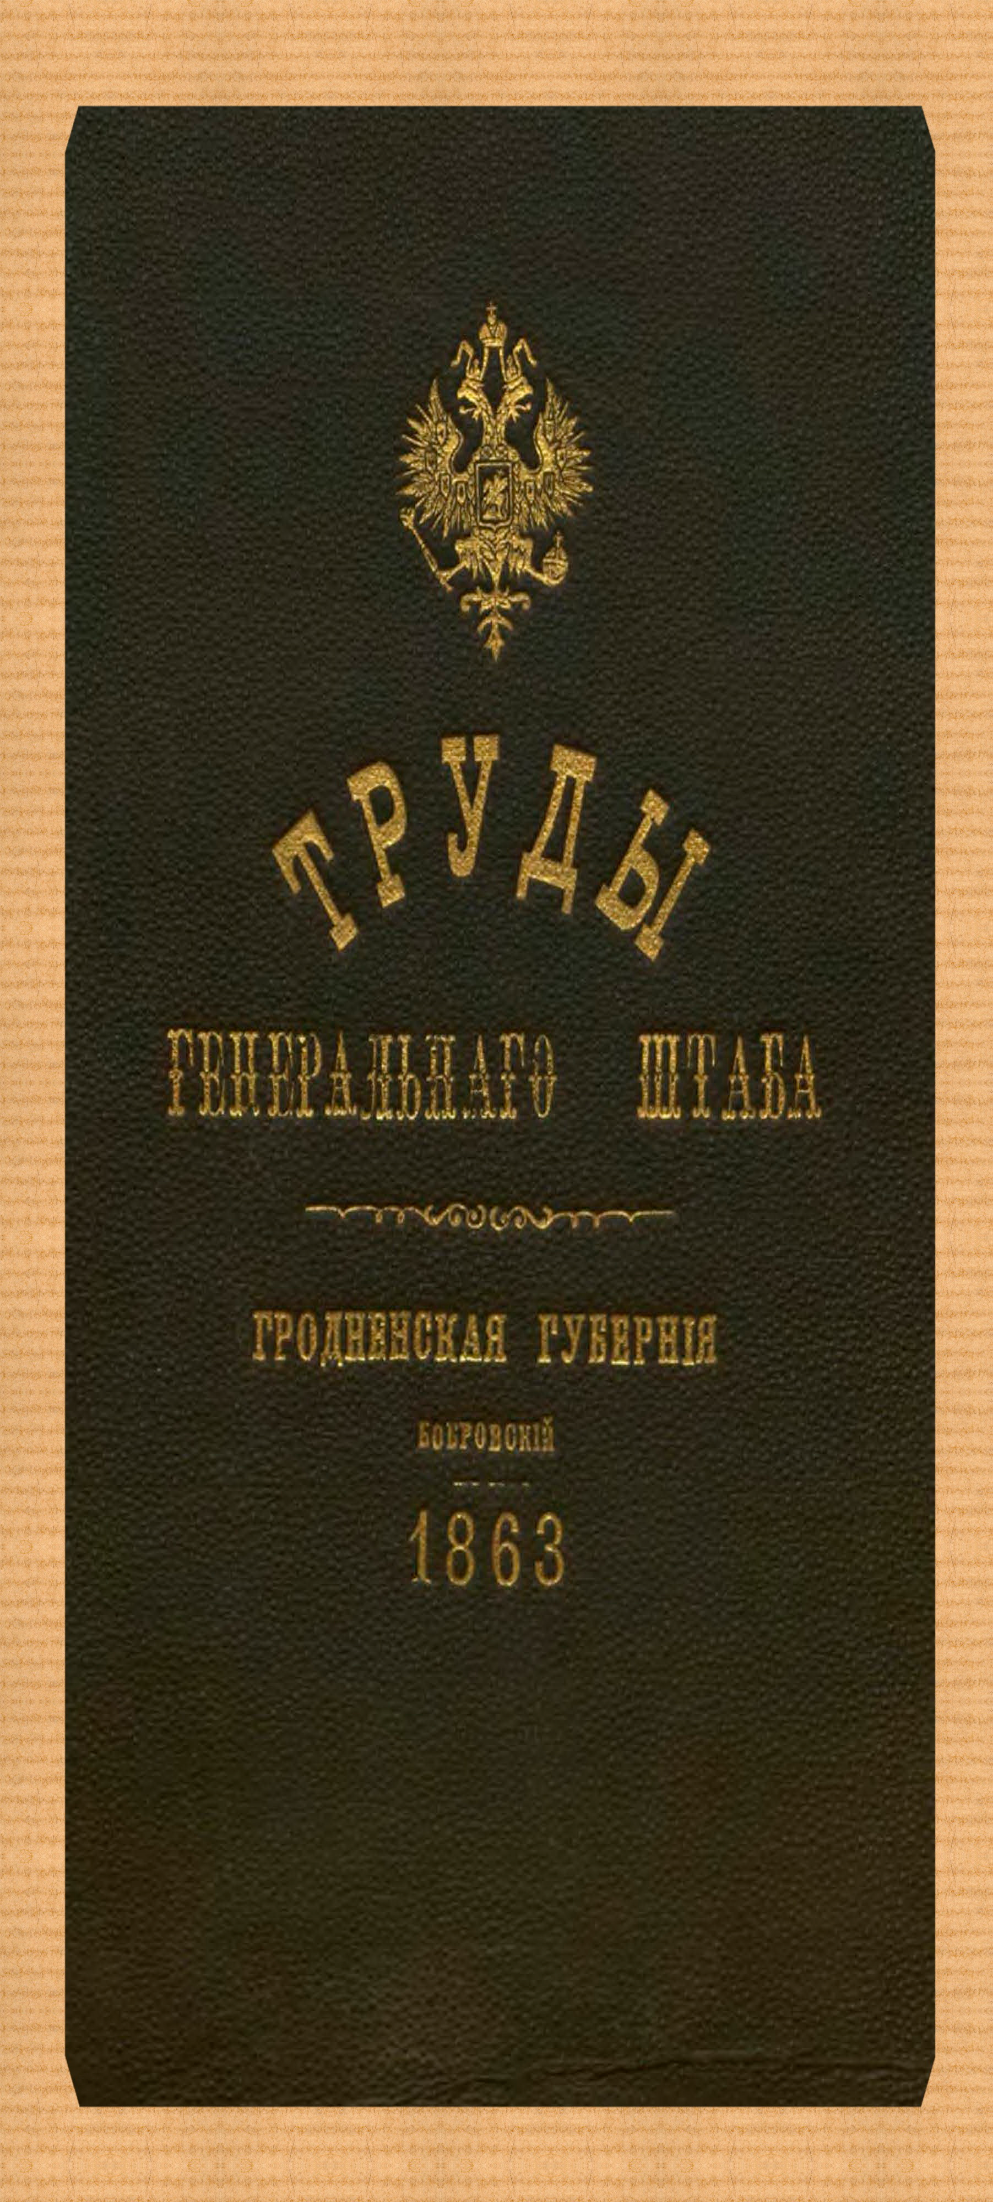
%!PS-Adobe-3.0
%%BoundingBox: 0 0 993 2202
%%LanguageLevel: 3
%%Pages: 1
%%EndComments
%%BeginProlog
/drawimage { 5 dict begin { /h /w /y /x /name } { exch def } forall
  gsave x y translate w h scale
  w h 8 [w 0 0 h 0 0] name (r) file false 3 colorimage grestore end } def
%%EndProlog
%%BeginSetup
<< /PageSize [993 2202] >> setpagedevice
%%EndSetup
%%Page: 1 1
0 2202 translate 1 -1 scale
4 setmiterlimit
1 setgray
0 0 993 2202 rectfill
(images/1.raw) 0 0 993 2202 drawimage
showpage
%%EOF
